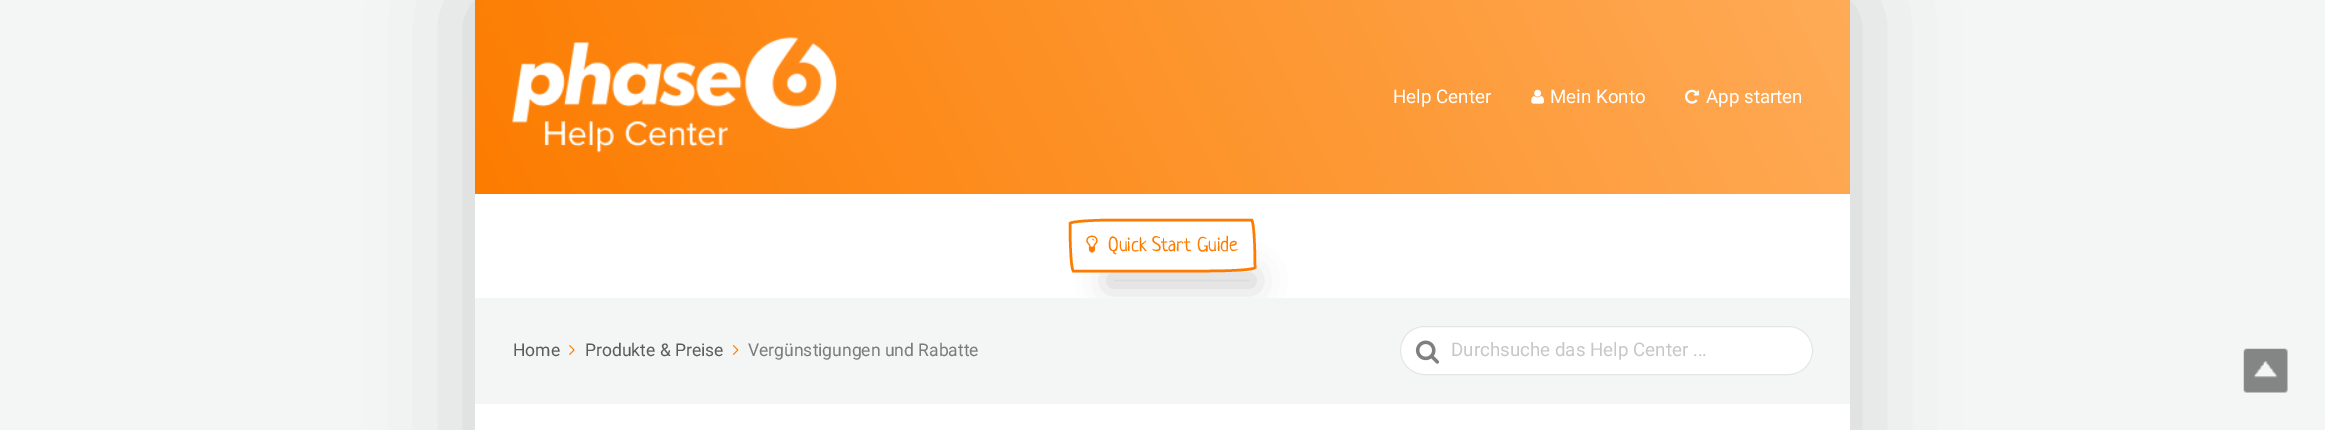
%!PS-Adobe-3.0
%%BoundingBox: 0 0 2325 430
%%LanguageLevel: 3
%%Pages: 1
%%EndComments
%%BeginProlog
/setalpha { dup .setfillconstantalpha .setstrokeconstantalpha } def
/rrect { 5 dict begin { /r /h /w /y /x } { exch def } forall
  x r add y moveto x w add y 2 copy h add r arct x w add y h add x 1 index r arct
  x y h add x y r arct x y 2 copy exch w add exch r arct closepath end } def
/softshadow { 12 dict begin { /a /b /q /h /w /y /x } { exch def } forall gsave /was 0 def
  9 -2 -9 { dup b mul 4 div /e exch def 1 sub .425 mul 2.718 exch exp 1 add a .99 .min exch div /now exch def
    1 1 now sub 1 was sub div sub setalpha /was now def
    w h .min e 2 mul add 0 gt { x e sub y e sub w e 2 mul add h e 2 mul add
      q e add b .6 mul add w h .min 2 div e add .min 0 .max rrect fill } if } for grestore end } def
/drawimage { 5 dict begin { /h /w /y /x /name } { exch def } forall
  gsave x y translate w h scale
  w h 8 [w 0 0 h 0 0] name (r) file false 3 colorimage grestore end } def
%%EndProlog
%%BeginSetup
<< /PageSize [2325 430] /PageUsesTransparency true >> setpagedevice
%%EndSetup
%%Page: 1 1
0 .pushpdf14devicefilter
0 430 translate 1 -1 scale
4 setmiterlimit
0.957 0.961 0.961 setrgbcolor
0 0 2325 430 rectfill
0 setgray
475 0 1375 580 0 50 0.15 softshadow
1 setgray
475 194 1375 236 rectfill
gsave newpath 475 0 moveto 1850 0 lineto 1850 194 lineto 475 194 lineto closepath clip newpath
<< /ShadingType 2 /ColorSpace /DeviceRGB /Coords [569 386 1756 -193] /Extend [true true] /Function << /FunctionType 2 /Domain [0 1] /C0 [0.988 0.486 0] /C1 [1 0.671 0.341] /N 1 >> >> shfill grestore
(images/1.raw) 512 37 325 116 drawimage
(images/2.raw) 1531 89 13 15 drawimage
(images/3.raw) 1685 89 14 15 drawimage
gsave
newpath 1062 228 moveto 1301 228 lineto 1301 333 lineto 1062 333 lineto closepath 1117.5 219 moveto 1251.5 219 lineto 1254 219 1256 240.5 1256 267.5 curveto 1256 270.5 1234.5 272.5 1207.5 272.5 curveto 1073.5 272.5 lineto 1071 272.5 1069 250.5 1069 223.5 curveto 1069 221 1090.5 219 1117.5 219 curveto closepath eoclip newpath
0 setgray
1110 276 143 9 0 15.5 0.2 softshadow
grestore
0.988 0.486 0 setrgbcolor
2.5 setlinewidth
newpath 1117.5 220 moveto 1251.5 220 lineto 1253.5 220 1255 241.5 1255 267.5 curveto 1255 269.5 1233.5 271 1207.5 271 curveto 1073.5 271 lineto 1071.5 271 1070 250 1070 223.5 curveto 1070 221.5 1091.5 220 1117.5 220 curveto closepath stroke
(images/4.raw) 1086 235 12 18 drawimage
0.957 0.961 0.961 setrgbcolor
475 298 1375 106 rectfill
(images/5.raw) 569 345 6 10 drawimage
(images/6.raw) 732 345 7 10 drawimage
1 setgray
1400 326 413 49 24.5 rrect fill
0.5 setalpha
0.8 setgray
1 setlinewidth
1400.5 326.5 412 48 24 rrect stroke
1 setalpha
(images/7.raw) 1415 340 24 24 drawimage
(images/8.raw) 2243 348 45 45 drawimage
/Roboto-Regular [18.75 0 0 -18.75 0 0] selectfont
1 setgray
1393 103 moveto (Help Center) show
1550 103 moveto (Mein Konto) show
1706 103 moveto (App starten) show
/Neucha-Regular [20 0 0 -20 0 0] selectfont
0.988 0.486 0 setrgbcolor
1108 251 moveto (Quick Start Guide) show
/Roboto-Regular [17.5 0 0 -17.5 0 0] selectfont
0.361 setgray
513 356 moveto (Home) show
585 356 moveto (Produkte & Preise) show
0.478 0.482 0.482 setrgbcolor
748 356 moveto (Vergünstigungen und Rabatte) show
/Roboto-Regular [18.75 0 0 -18.75 0 0] selectfont
0.78 setgray
1451 356 moveto (Durchsuche das Help Center ...) show
.poppdf14devicefilter showpage
%%EOF
